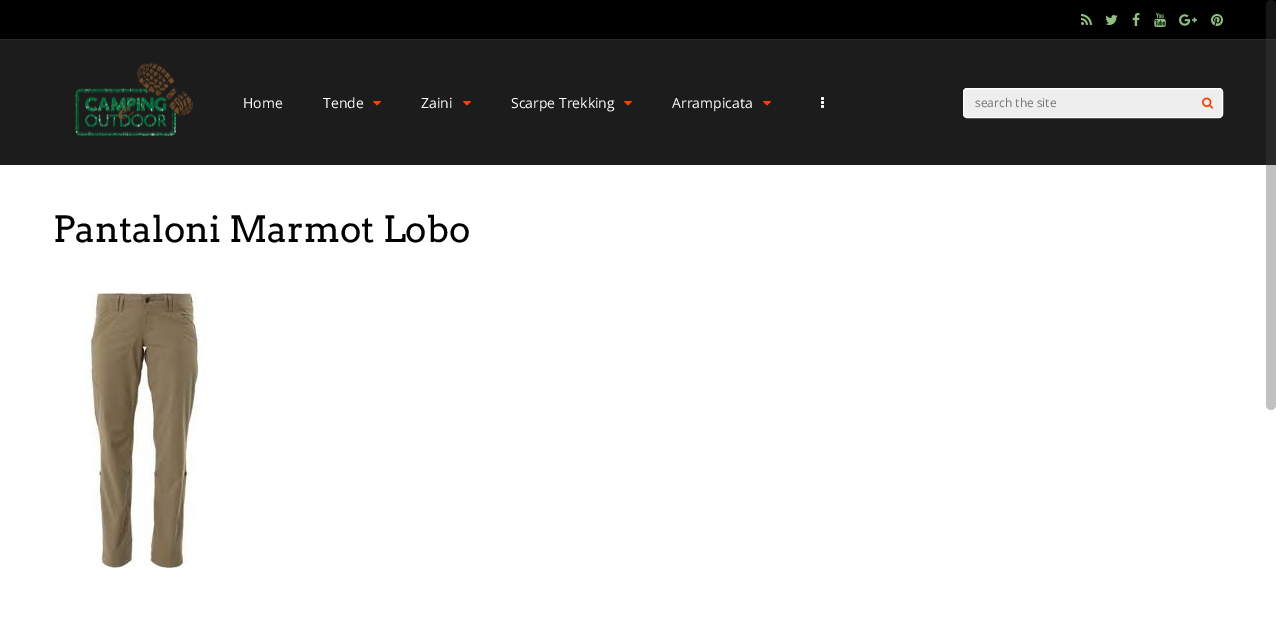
%!PS-Adobe-3.0
%%BoundingBox: 0 0 1276 618
%%LanguageLevel: 3
%%Pages: 1
%%EndComments
%%BeginProlog
/setalpha { dup .setfillconstantalpha .setstrokeconstantalpha } def
/rrect { 5 dict begin { /r /h /w /y /x } { exch def } forall
  x r add y moveto x w add y 2 copy h add r arct x w add y h add x 1 index r arct
  x y h add x y r arct x y 2 copy exch w add exch r arct closepath end } def
/drawimage { 5 dict begin { /h /w /y /x /name } { exch def } forall
  gsave x y translate w h scale
  w h 8 [w 0 0 h 0 0] name (r) file false 3 colorimage grestore end } def
%%EndProlog
%%BeginSetup
<< /PageSize [1276 618] /PageUsesTransparency true >> setpagedevice
%%EndSetup
%%Page: 1 1
0 .pushpdf14devicefilter
0 618 translate 1 -1 scale
4 setmiterlimit
1 setgray
0 0 1276 618 rectfill
0 setgray
0 0 1276 39 rectfill
0.161 setgray
0 39 1276 1 rectfill
(images/1.raw) 1081 14 11 11 drawimage
(images/2.raw) 1105 15 13 10 drawimage
(images/3.raw) 1132 13 8 13 drawimage
(images/4.raw) 1154 13 12 14 drawimage
(images/5.raw) 1179 14 18 12 drawimage
(images/6.raw) 1211 14 12 12 drawimage
0.11 setgray
0 40 1276 125 rectfill
(images/7.raw) 75 62 119 75 drawimage
(images/8.raw) 373 101 8 5 drawimage
(images/8.raw) 463 101 8 5 drawimage
(images/8.raw) 624 101 8 5 drawimage
(images/8.raw) 763 101 8 5 drawimage
(images/9.raw) 821 97 3 11 drawimage
0.933 setgray
963.5 88.5 259 29 3.5 rrect gsave fill grestore
1 setgray
stroke
(images/10.raw) 1202 97 12 12 drawimage
(images/11.raw) 85 293 120 275 drawimage
0.33 setalpha
0.259 setgray
1266 0 10 410 5 rrect fill
/OpenSans-Regular [14 0 0 -14 0 0] selectfont
1 setalpha
1 setgray
243 108 moveto (Home) show
323 108 moveto (Tende) show
421 108 moveto (Zaini) show
511 108 moveto (Scarpe Trekking) show
672 108 moveto (Arrampicata) show
/OpenSans-Regular [12 0 0 -12 0 0] selectfont
0.459 setgray
975 107 moveto (search the site) show
/Arvo-Regular [36 0 0 -36 0 0] selectfont
0 setgray
53 242 moveto (Pantaloni Marmot Lobo) show
.poppdf14devicefilter showpage
%%EOF
